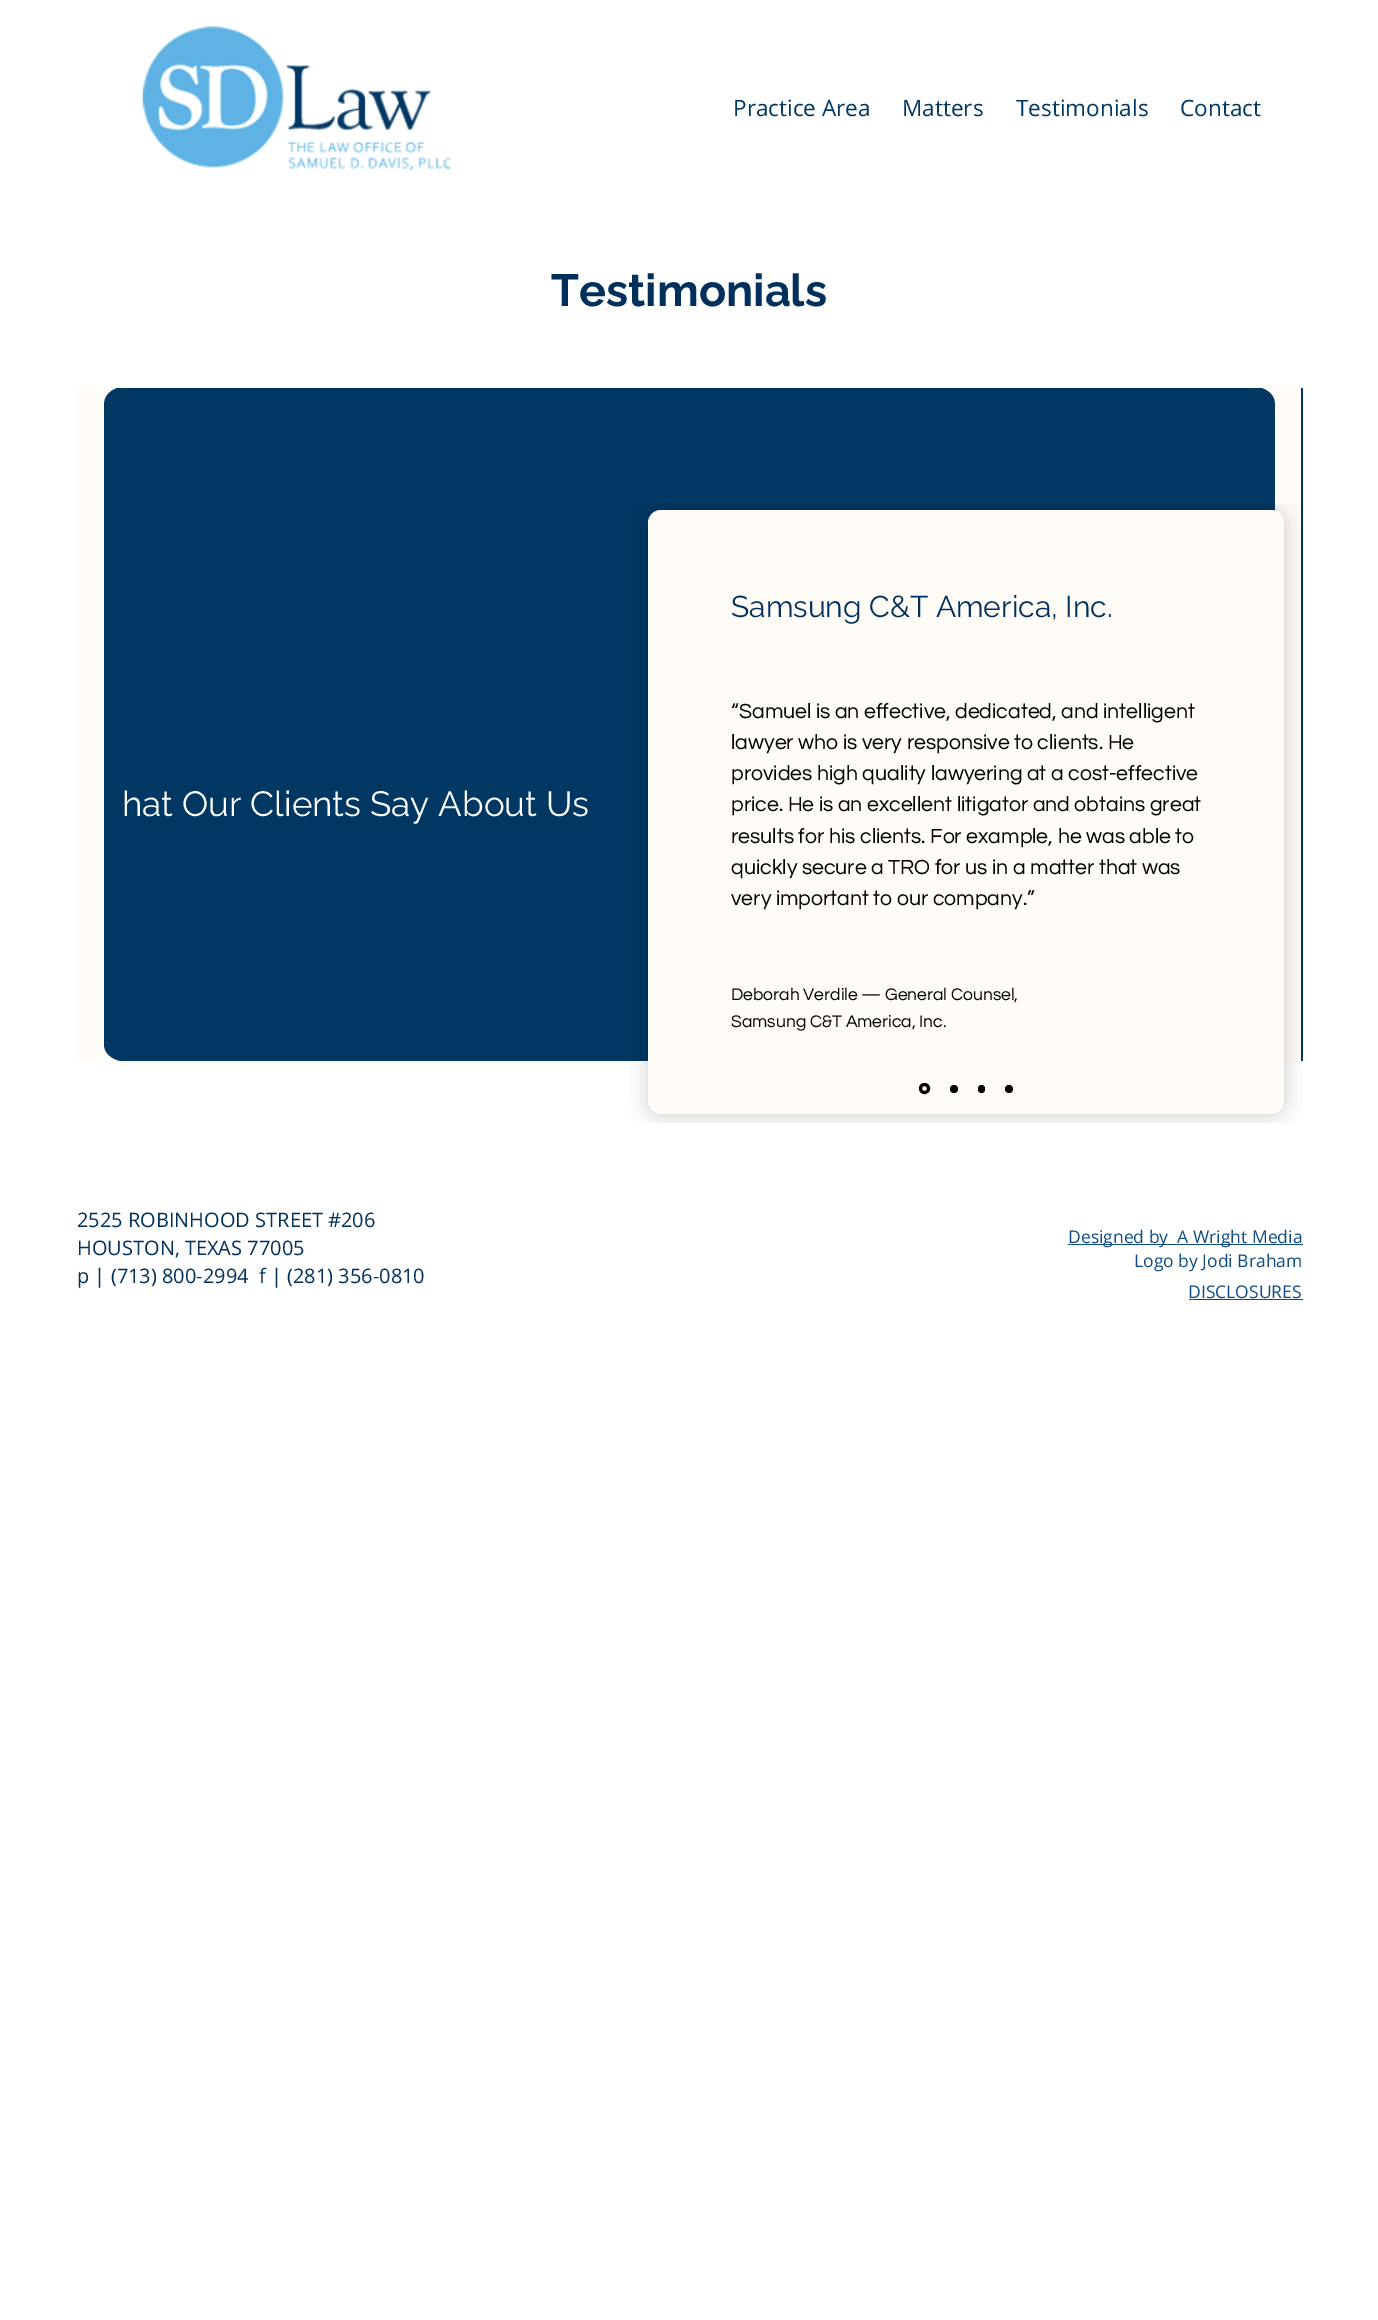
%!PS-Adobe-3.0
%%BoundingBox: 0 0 1378 2320
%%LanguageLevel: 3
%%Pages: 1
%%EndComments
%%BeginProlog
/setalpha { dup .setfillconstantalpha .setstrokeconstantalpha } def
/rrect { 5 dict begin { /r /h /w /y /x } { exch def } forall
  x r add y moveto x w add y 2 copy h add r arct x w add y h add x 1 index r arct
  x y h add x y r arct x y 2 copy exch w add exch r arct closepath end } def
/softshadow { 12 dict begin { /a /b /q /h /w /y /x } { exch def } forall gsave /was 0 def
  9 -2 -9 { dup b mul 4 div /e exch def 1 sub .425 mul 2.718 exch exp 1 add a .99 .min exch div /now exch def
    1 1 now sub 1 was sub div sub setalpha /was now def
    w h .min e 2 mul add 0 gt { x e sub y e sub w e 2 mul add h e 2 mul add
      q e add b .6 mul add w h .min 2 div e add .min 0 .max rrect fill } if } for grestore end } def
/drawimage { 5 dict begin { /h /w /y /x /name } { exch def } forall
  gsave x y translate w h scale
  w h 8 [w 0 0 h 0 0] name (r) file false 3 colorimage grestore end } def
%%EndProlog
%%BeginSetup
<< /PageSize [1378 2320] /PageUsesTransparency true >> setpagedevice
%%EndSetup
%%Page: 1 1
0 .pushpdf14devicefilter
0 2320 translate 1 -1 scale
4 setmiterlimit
1 setgray
0 0 1378 2320 rectfill
(images/1.raw) 142 26 308 144 drawimage
0 0.216 0.388 setrgbcolor
104 388 1199 673 rectfill
1 0.988 0.973 setrgbcolor
newpath 104 1046 moveto 104 403 lineto 104 393 115 386 127 386 curveto 77 386 lineto 77 1062 lineto 127 1062 lineto 115 1062 104 1055 104 1046 curveto closepath fill
newpath 1275 1046 moveto 1275 403 lineto 1275 393 1264 386 1251 386 curveto 1301 386 lineto 1301 1062 lineto 1251 1062 lineto 1264 1062 1275 1055 1275 1046 curveto closepath fill
gsave
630 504 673 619 rectclip
0 setgray
648 511 636 604 13 10.5 0.2 softshadow
grestore
648 510 636 604 13 rrect fill
0 setgray
3 setlinewidth
newpath 924.5 1088.5 4 0 360 arc closepath stroke
newpath 954 1089 4 0 360 arc closepath fill
978 1085 7 8 3.5 rrect fill
newpath 1009 1089 4 0 360 arc closepath fill
0.059 0.298 0.522 setrgbcolor
1068 1244 235 1 rectfill
1189 1299 114 1 rectfill
/OpenSans-Regular [22.5 0 0 -22.5 0 0] selectfont
0 0.216 0.388 setrgbcolor
733 116 moveto (Practice Area) show
902 116 moveto (Matters) show
1016 116 moveto (Testimonials) show
1180 116 moveto (Contact) show
/Raleway-Bold [45 0 0 -45 0 0] selectfont
0 0.188 0.357 setrgbcolor
551 306 moveto (Testimonials) show
/Raleway-Regular [35 0 0 -35 0 0] selectfont
1 setgray
122 816 moveto (hat Our Clients Say About Us) show
/Raleway-Regular [30 0 0 -30 0 0] selectfont
0 0.188 0.357 setrgbcolor
731 617 moveto (Samsung C&T America, Inc.) show
/Questrial-Regular [21.25 0 0 -21.25 0 0] selectfont
0 setgray
731 718 moveto (“Samuel is an effective, dedicated, and intelligent) show
731 749 moveto (lawyer who is very responsive to clients. He) show
731 780 moveto (provides high quality lawyering at a cost-effective) show
731 811 moveto (price. He is an excellent litigator and obtains great) show
731 843 moveto (results for his clients. For example, he was able to) show
731 874 moveto (quickly secure a TRO for us in a matter that was) show
731 905 moveto (very important to our company.”) show
/Questrial-Regular [17.5 0 0 -17.5 0 0] selectfont
731 1000 moveto (Deborah Verdile — General Counsel,) show
731 1027 moveto (Samsung C&T America, Inc.) show
/OpenSans-Regular [20 0 0 -20 0 0] selectfont
0 0.188 0.357 setrgbcolor
77 1227 moveto (2525 ROBINHOOD STREET #206) show
77 1255 moveto (HOUSTON, TEXAS 77005) show
77 1283 moveto (p | \(713\) 800-2994  f | \(281\) 356-0810) show
/OpenSans-Regular [17.5 0 0 -17.5 0 0] selectfont
0.059 0.298 0.522 setrgbcolor
1068 1243 moveto (Designed by  A Wright Media) show
1134 1267 moveto (Logo by Jodi Braham) show
1188 1298 moveto (DISCLOSURES) show
.poppdf14devicefilter showpage
%%EOF
